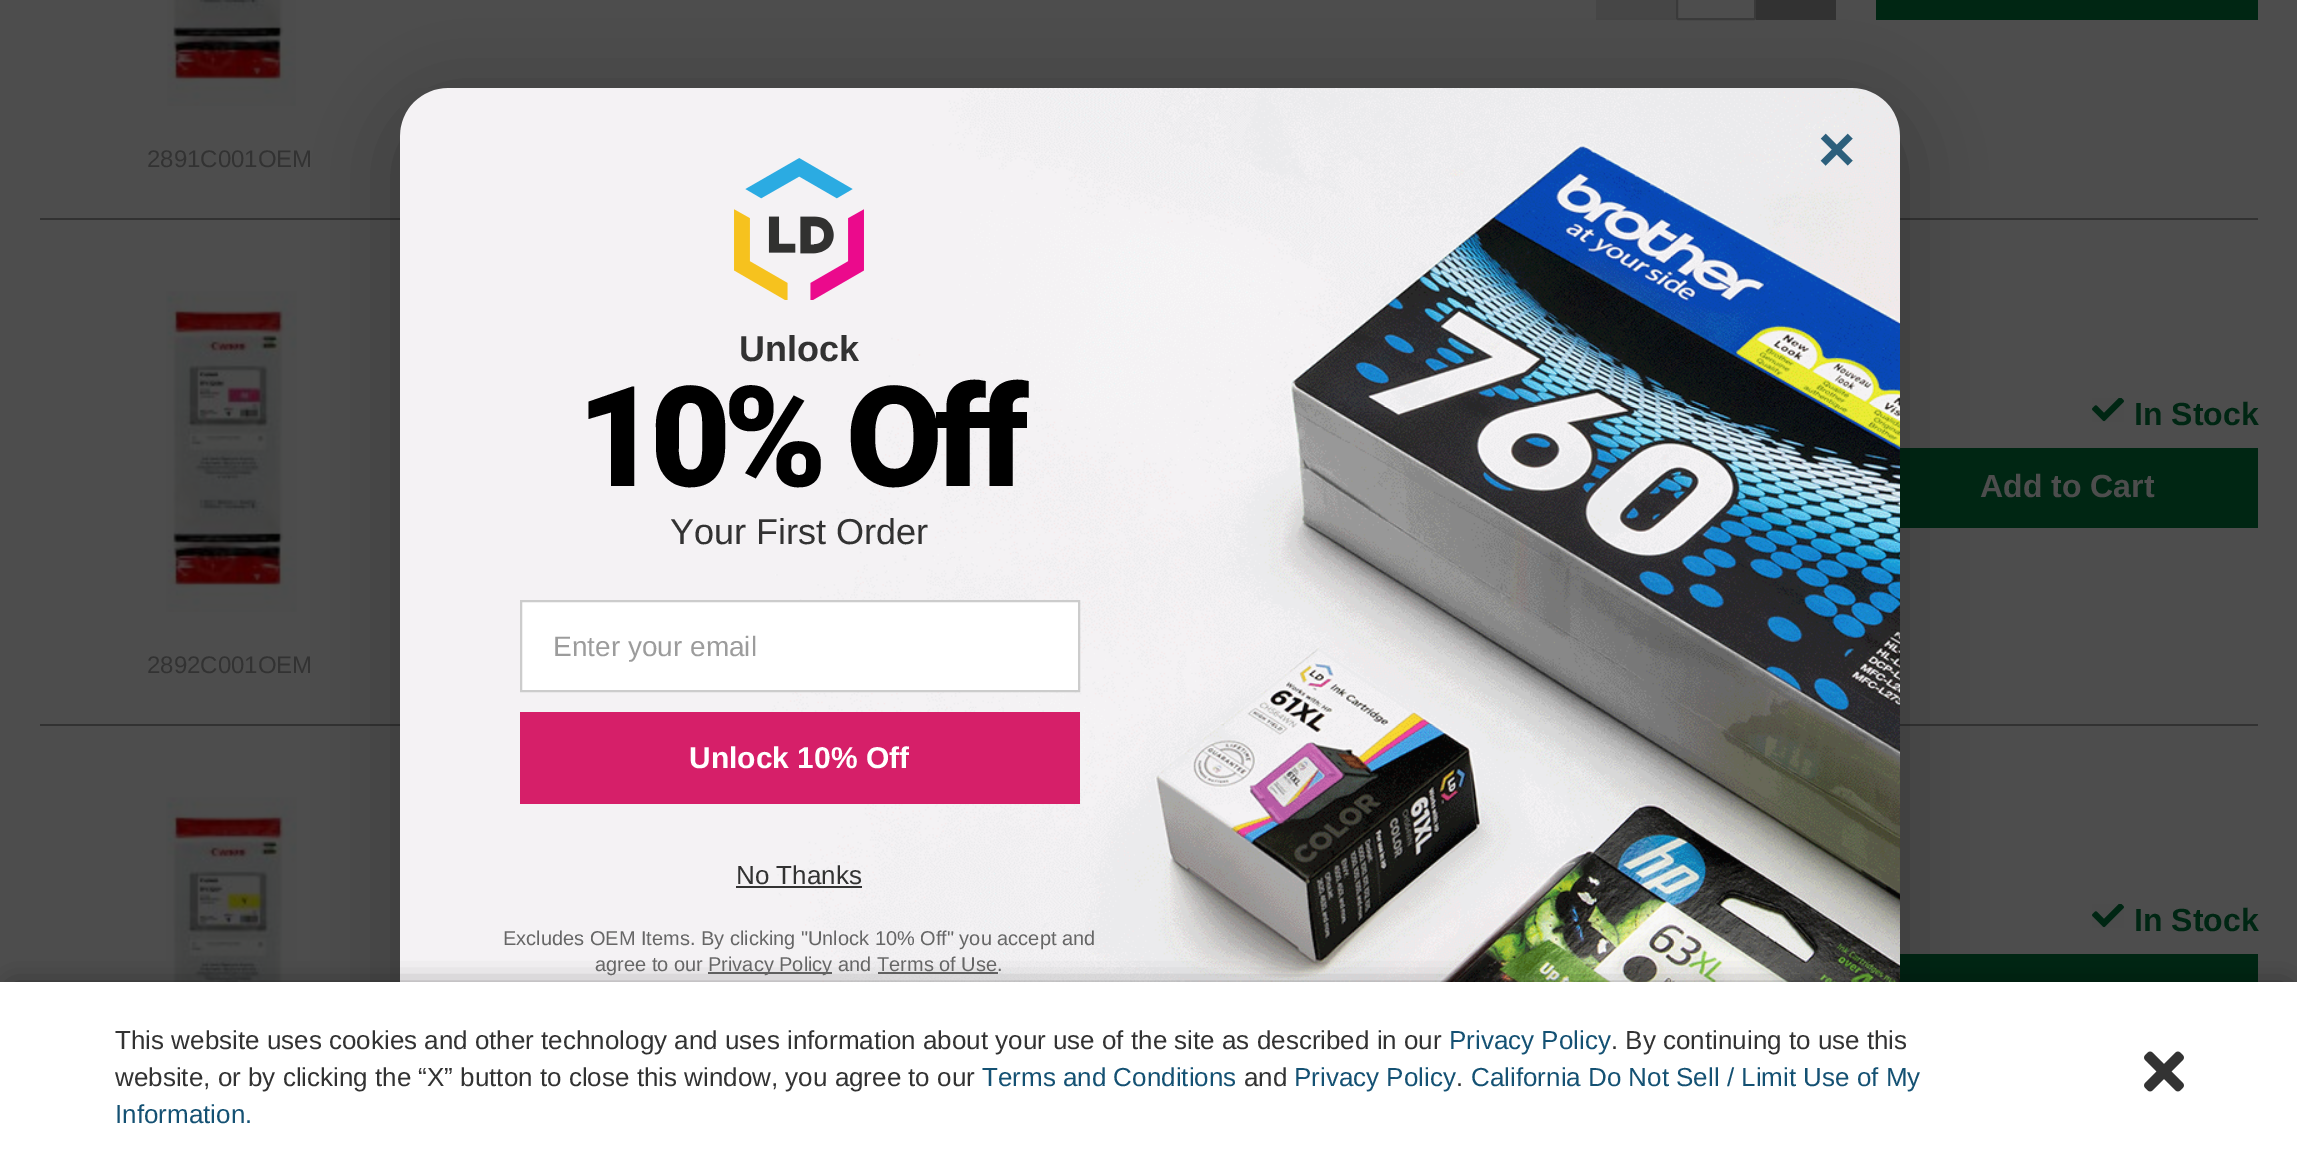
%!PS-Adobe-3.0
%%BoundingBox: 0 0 2297 1173
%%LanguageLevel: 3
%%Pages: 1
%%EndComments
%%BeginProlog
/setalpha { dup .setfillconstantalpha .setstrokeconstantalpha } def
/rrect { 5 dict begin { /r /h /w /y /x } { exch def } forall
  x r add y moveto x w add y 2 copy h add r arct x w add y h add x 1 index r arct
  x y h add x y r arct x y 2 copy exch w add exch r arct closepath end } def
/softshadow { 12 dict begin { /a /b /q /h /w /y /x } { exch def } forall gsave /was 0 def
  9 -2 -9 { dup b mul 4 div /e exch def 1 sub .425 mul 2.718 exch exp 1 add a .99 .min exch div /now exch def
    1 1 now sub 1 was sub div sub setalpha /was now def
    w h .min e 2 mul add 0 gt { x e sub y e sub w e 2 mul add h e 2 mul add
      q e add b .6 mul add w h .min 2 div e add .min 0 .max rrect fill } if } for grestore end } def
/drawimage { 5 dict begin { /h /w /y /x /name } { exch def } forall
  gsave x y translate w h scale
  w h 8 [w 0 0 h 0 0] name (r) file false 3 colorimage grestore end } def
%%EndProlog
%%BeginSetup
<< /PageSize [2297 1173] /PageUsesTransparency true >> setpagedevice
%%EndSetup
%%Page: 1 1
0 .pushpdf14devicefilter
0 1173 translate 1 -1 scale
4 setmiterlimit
0.302 setgray
0 0 2297 1173 rectfill
0.275 setgray
1596 0 80 20 rectfill
0.227 setgray
2 setlinewidth
1677 -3 78 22 1 rrect stroke
0.196 setgray
1756 0 80 20 rectfill
0 0.149 0.075 setrgbcolor
1876 0 382 20 rectfill
(images/3.raw) 167 0 129 106 drawimage
0.196 setgray
40 218 2218 2 rectfill
0 0.149 0.075 setrgbcolor
1900 448 358 80 rectfill
(images/5.raw) 166 291 131 321 drawimage
0.196 setgray
40 724 2218 2 rectfill
(images/6.raw) 166 797 131 185 drawimage
0 0.149 0.075 setrgbcolor
1900 954 358 28 rectfill
0 setgray
400 108 1500 1000 48 40 0.3 softshadow
(images/1.raw) 400 88 1500 894 drawimage
(images/2.raw) 734 158 130 142 drawimage
1 setgray
newpath 521 601 moveto 1079 601 lineto 1079 691 lineto 521 691 lineto closepath gsave fill grestore
0.8 setgray
stroke
0.839 0.122 0.412 setrgbcolor
520 712 560 92 rectfill
0.2 setgray
736 886 126 2 rectfill
0.4 setgray
708 972 124 2 rectfill
878 972 120 2 rectfill
(images/4.raw) 2092 398 32 24 drawimage
(images/4.raw) 2092 904 32 24 drawimage
0 setgray
14 990 2270 164 0 13 0.64 softshadow
1 setgray
0 982 2297 191 rectfill
(images/7.raw) 2144 1051 40 41 drawimage
/LiberationSans-Bold [64 0 0 -64 0 0] selectfont
0.173 0.373 0.486 setrgbcolor
1818 171 moveto (×) show
/LiberationSans-Bold [36 0 0 -36 0 0] selectfont
0.196 setgray
739 361 moveto (Unlock) show
/Roboto-Black [140 0 0 -140 0 0] selectfont
0 setgray
577 486 moveto -8 0 (10% Off) ashow
/LiberationSans-Regular [36 0 0 -36 0 0] selectfont
0.196 setgray
670 544 moveto (Your First Order) show
/LiberationSans-Regular [28 0 0 -28 0 0] selectfont
0.612 setgray
553 656 moveto (Enter your email) show
/LiberationSans-Bold [30 0 0 -30 0 0] selectfont
1 setgray
689 768 moveto (Unlock 10% Off) show
/LiberationSans-Regular [26 0 0 -26 0 0] selectfont
0.196 setgray
736 884 moveto (No Thanks) show
/LiberationSans-Regular [20 0 0 -20 0 0] selectfont
0.4 setgray
503 945 moveto (Excludes OEM Items. By clicking "Unlock 10% Off" you accept and) show
595 971 moveto (agree to our) show
708 971 moveto (Privacy Policy and Terms of Use.) show
/LiberationSans-Regular [24 0 0 -24 0 0] selectfont
0.196 setgray
147 167 moveto (2891C001OEM) show
/LiberationSans-Bold [32 0 0 -32 0 0] selectfont
0 0.149 0.075 setrgbcolor
2134 425 moveto (In Stock) show
0.302 setgray
1980 497 moveto (Add to Cart) show
/LiberationSans-Regular [24 0 0 -24 0 0] selectfont
0.196 setgray
147 673 moveto (2892C001OEM) show
/LiberationSans-Bold [32 0 0 -32 0 0] selectfont
0 0.149 0.075 setrgbcolor
2134 931 moveto (In Stock) show
/LiberationSans-Regular [26 0 0 -26 0 0] selectfont
0.196 setgray
115 1049 moveto (This website uses cookies and other technology and uses information about your use of the site as described in our) show
0.078 0.318 0.451 setrgbcolor
1449 1049 moveto (Privacy Policy) show
0.196 setgray
1611 1049 moveto (. By continuing to use this) show
115 1086 moveto (website, or by clicking the “X” button to close this window, you agree to our) show
0.078 0.318 0.451 setrgbcolor
982 1086 moveto (Terms and Conditions) show
0.196 setgray
1244 1086 moveto (and) show
0.078 0.318 0.451 setrgbcolor
1294 1086 moveto (Privacy Policy) show
0.196 setgray
1456 1086 moveto (.) show
0.078 0.318 0.451 setrgbcolor
1471 1086 moveto (California Do Not Sell / Limit Use of My) show
115 1123 moveto (Information.) show
.poppdf14devicefilter showpage
%%EOF
